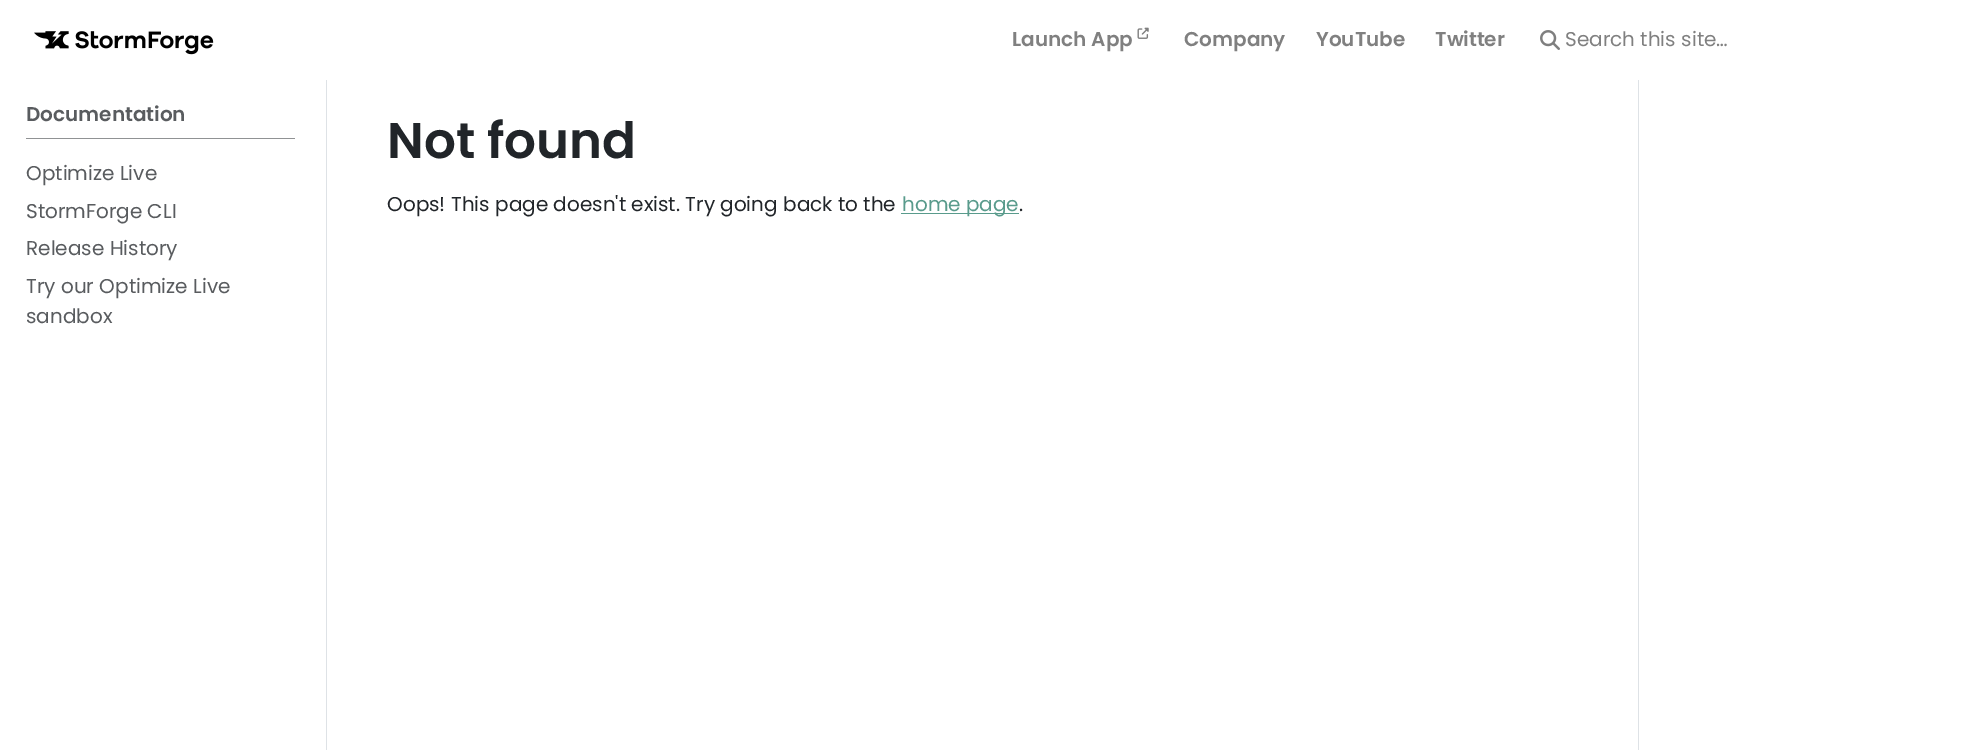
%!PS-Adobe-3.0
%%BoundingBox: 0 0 1965 750
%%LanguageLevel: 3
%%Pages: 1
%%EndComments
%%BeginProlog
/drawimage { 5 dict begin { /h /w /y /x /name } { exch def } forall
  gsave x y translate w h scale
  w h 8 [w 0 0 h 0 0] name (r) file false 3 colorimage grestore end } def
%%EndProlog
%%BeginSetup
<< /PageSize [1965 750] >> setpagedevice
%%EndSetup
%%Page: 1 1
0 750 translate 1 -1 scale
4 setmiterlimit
1 setgray
0 0 1965 750 rectfill
(images/1.raw) 34 31 180 24 drawimage
(images/2.raw) 1137 27 12 12 drawimage
(images/3.raw) 1540 30 20 20 drawimage
0.871 0.886 0.902 setrgbcolor
326 80 1 670 rectfill
0.565 0.573 0.58 setrgbcolor
26 138 269 1 rectfill
0.349 0.608 0.549 setrgbcolor
901 213 118 1 rectfill
0.871 0.886 0.902 setrgbcolor
1638 80 1 670 rectfill
/Poppins-SemiBold [20 0 0 -20 0 0] selectfont
0.502 setgray
1012 46 moveto (Launch App) show
1184 46 moveto (Company) show
1316 46 moveto (YouTube) show
1435 46 moveto (Twitter) show
/Poppins-Regular [20 0 0 -20 0 0] selectfont
1565 46 moveto (Search this site…) show
/Poppins-SemiBold [20 0 0 -20 0 0] selectfont
0.349 0.361 0.373 setrgbcolor
26 121 moveto (Documentation) show
/Poppins-Regular [20 0 0 -20 0 0] selectfont
26 180 moveto (Optimize Live) show
26 218 moveto (StormForge CLI) show
26 255 moveto (Release History) show
26 293 moveto (Try our Optimize Live) show
26 323 moveto (sandbox) show
/Poppins-SemiBold [50 0 0 -50 0 0] selectfont
0.129 0.145 0.161 setrgbcolor
387 158 moveto (Not found) show
/Poppins-Regular [20 0 0 -20 0 0] selectfont
387 211 moveto (Oops! This page doesn't exist. Try going back to the) show
0.349 0.608 0.549 setrgbcolor
902 211 moveto (home page) show
0.129 0.145 0.161 setrgbcolor
1019 211 moveto (.) show
showpage
%%EOF
